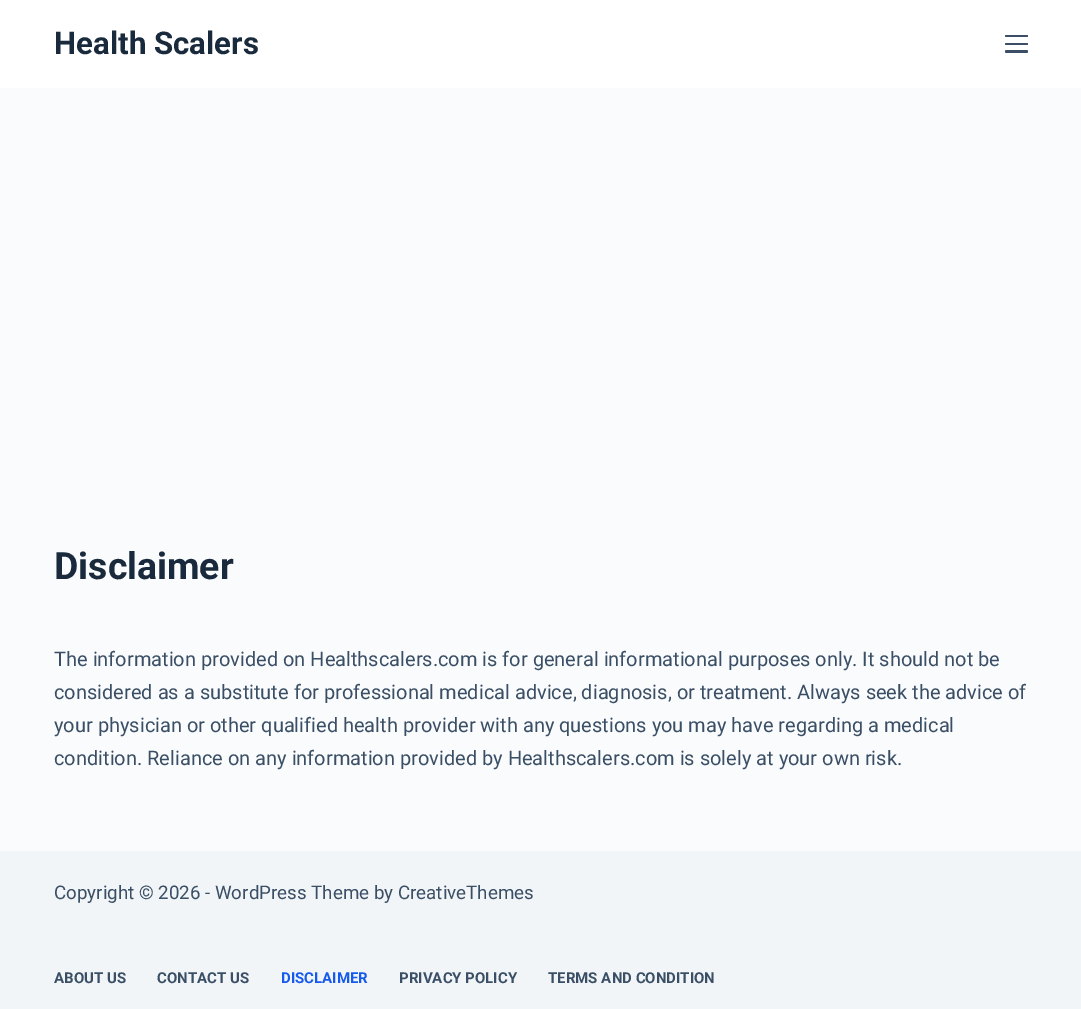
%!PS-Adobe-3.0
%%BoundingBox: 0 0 1081 1009
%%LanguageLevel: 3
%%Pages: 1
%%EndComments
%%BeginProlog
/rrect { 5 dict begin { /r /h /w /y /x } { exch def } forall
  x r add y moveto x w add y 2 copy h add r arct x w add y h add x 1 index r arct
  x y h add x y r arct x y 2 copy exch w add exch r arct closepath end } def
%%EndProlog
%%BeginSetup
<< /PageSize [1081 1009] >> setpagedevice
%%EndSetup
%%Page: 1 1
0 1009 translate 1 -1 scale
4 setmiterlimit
0.98 0.984 0.988 setrgbcolor
0 0 1081 1009 rectfill
1 setgray
0 0 1081 88 rectfill
0.227 0.31 0.4 setrgbcolor
1005 35 23 2 1 rrect fill
1005 43 23 2 1 rrect fill
1005 50 23 3 1.5 rrect fill
0.949 0.961 0.969 setrgbcolor
0 851 1081 158 rectfill
/Roboto-Bold [31.25 0 0 -31.25 0 0] selectfont
0.098 0.165 0.239 setrgbcolor
54 54 moveto (Health Scalers) show
/Roboto-Bold [37.5 0 0 -37.5 0 0] selectfont
54 579 moveto (Disclaimer) show
/Roboto-Regular [20 0 0 -20 0 0] selectfont
0.227 0.31 0.4 setrgbcolor
54 666 moveto (The information provided on Healthscalers.com is for general informational purposes only. It should not be) show
54 699 moveto (considered as a substitute for professional medical advice, diagnosis, or treatment. Always seek the advice of) show
54 732 moveto (your physician or other qualified health provider with any questions you may have regarding a medical) show
54 765 moveto (condition. Reliance on any information provided by Healthscalers.com is solely at your own risk.) show
/Roboto-Regular [18.75 0 0 -18.75 0 0] selectfont
54 899 moveto (Copyright © 2026 - WordPress Theme by CreativeThemes) show
/Roboto-Bold [15 0 0 -15 0 0] selectfont
54 983 moveto (ABOUT US) show
157 983 moveto (CONTACT US) show
0.082 0.349 0.929 setrgbcolor
281 983 moveto (DISCLAIMER) show
0.227 0.31 0.4 setrgbcolor
399 983 moveto (PRIVACY POLICY) show
548 983 moveto (TERMS AND CONDITION) show
showpage
%%EOF
